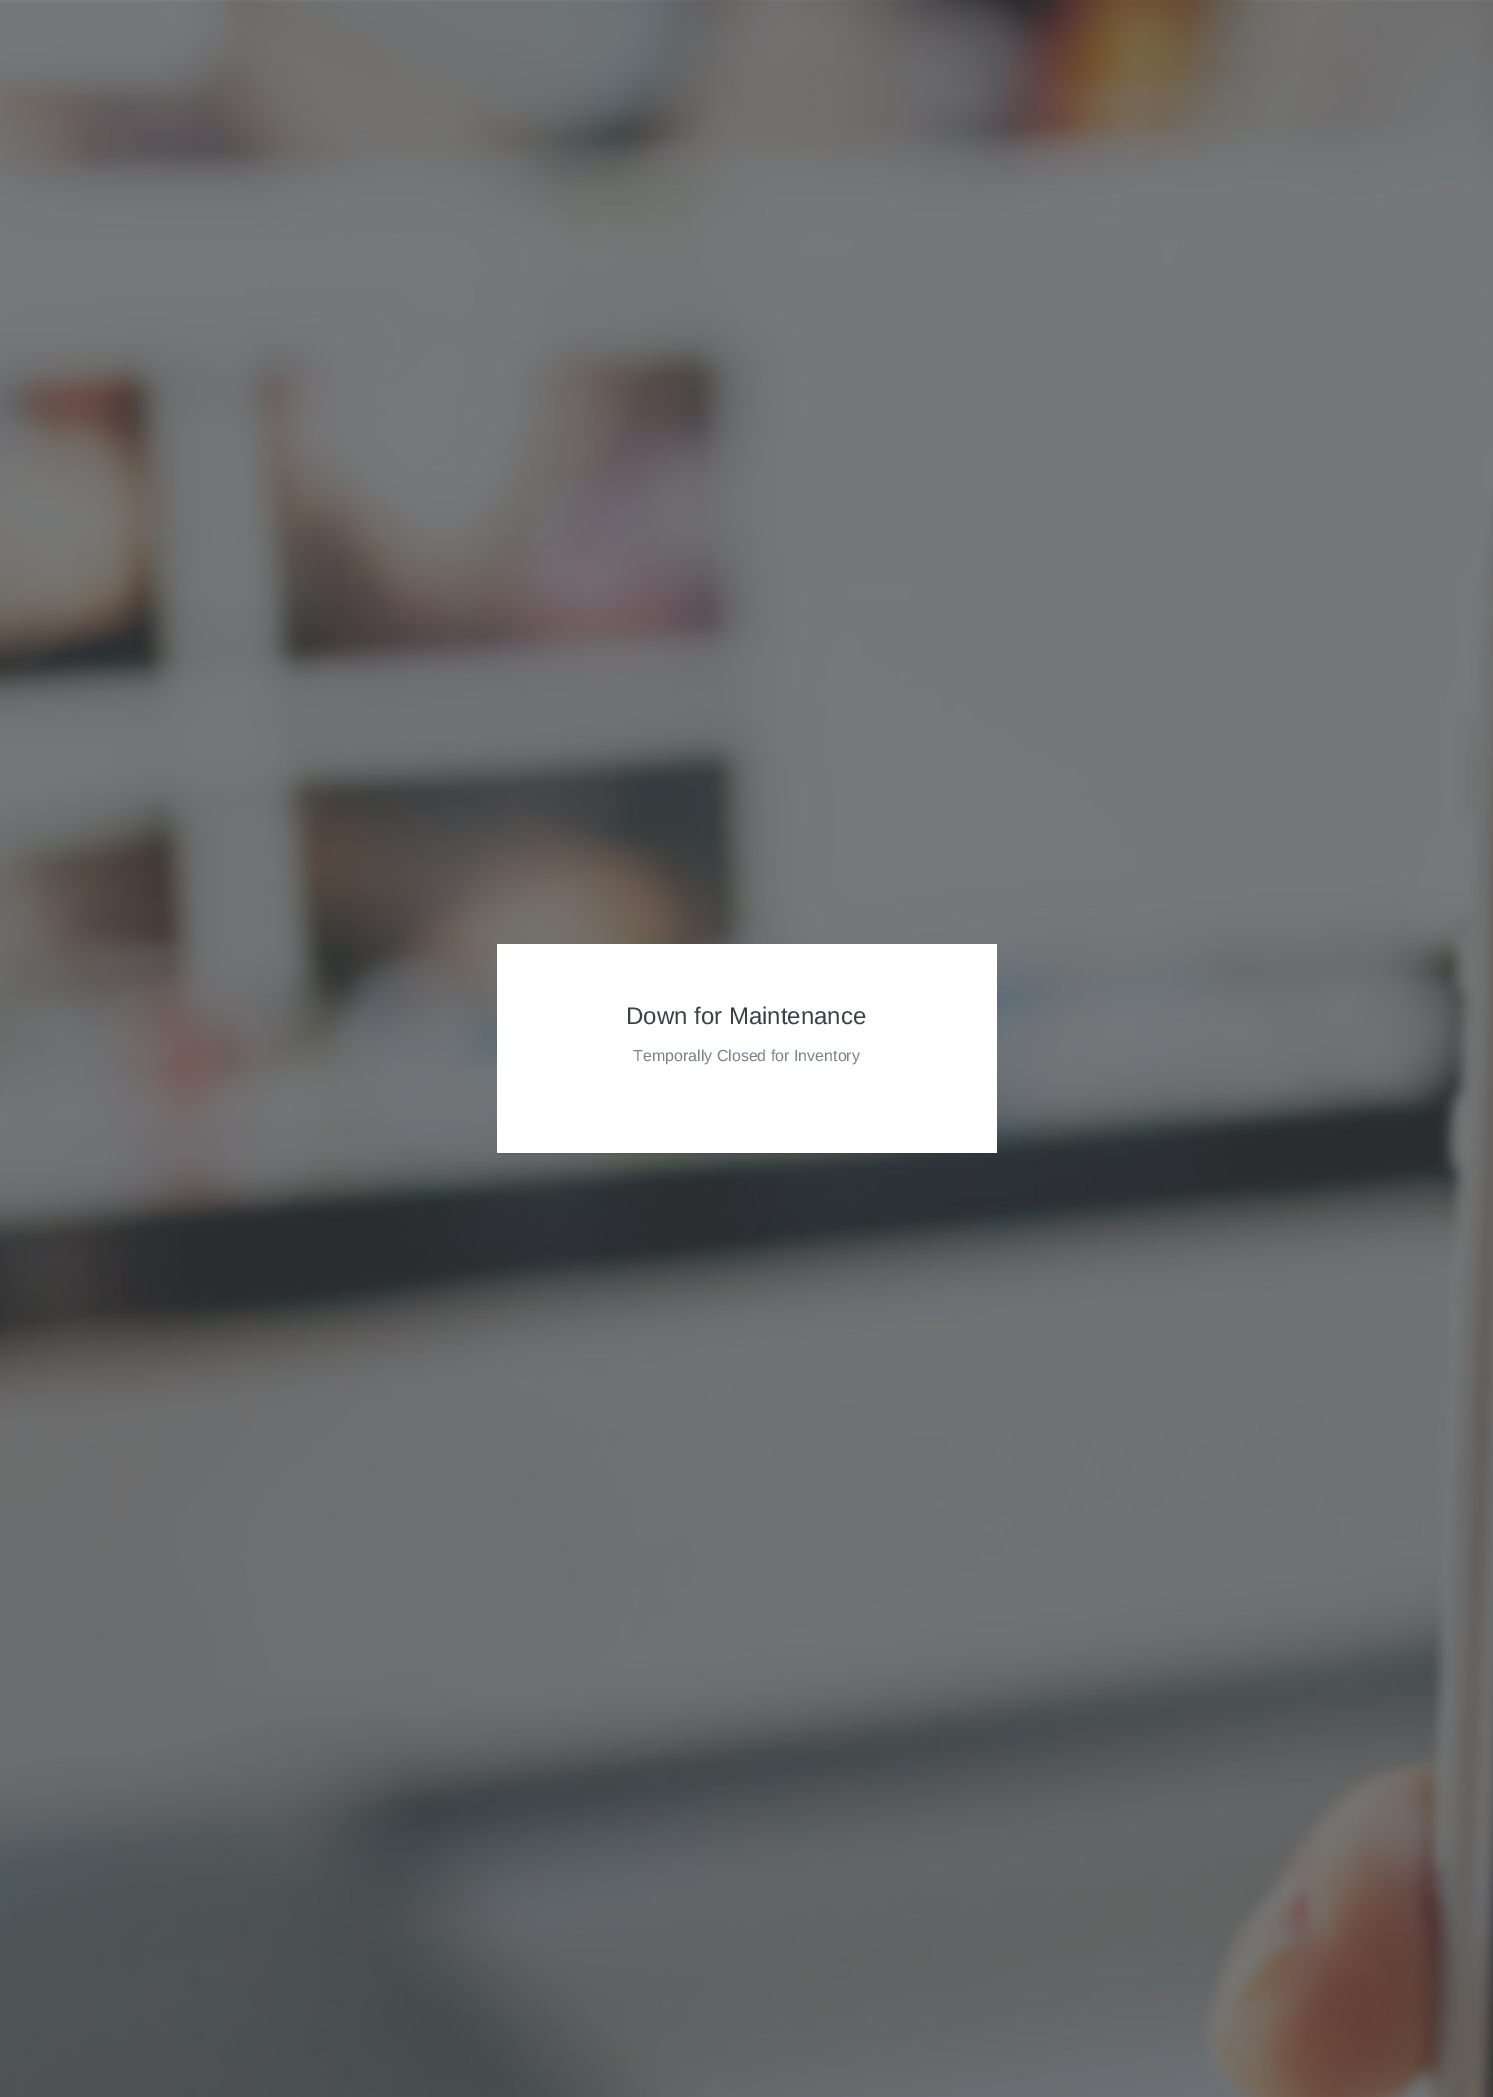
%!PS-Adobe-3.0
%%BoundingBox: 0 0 1493 2097
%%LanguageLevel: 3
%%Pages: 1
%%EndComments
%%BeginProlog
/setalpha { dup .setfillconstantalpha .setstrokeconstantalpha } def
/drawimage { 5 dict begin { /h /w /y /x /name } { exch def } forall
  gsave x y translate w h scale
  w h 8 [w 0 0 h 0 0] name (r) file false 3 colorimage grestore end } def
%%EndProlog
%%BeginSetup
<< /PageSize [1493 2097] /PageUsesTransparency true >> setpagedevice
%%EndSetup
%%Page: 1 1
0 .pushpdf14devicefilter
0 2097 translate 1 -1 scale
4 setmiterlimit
1 setgray
0 0 1493 2097 rectfill
(images/1.raw) 0 0 1493 2097 drawimage
0.07 setalpha
0 setgray
497 1153 500 2 rectfill
1 setalpha
1 setgray
497 944 500 209 rectfill
/LiberationSans-Regular [24 0 0 -24 0 0] selectfont
0.235 0.251 0.263 setrgbcolor
626 1024 moveto (Down for Maintenance) show
/LiberationSans-Regular [16 0 0 -16 0 0] selectfont
0.475 0.51 0.537 setrgbcolor
633 1061 moveto (Temporally Closed for Inventory) show
.poppdf14devicefilter showpage
%%EOF
